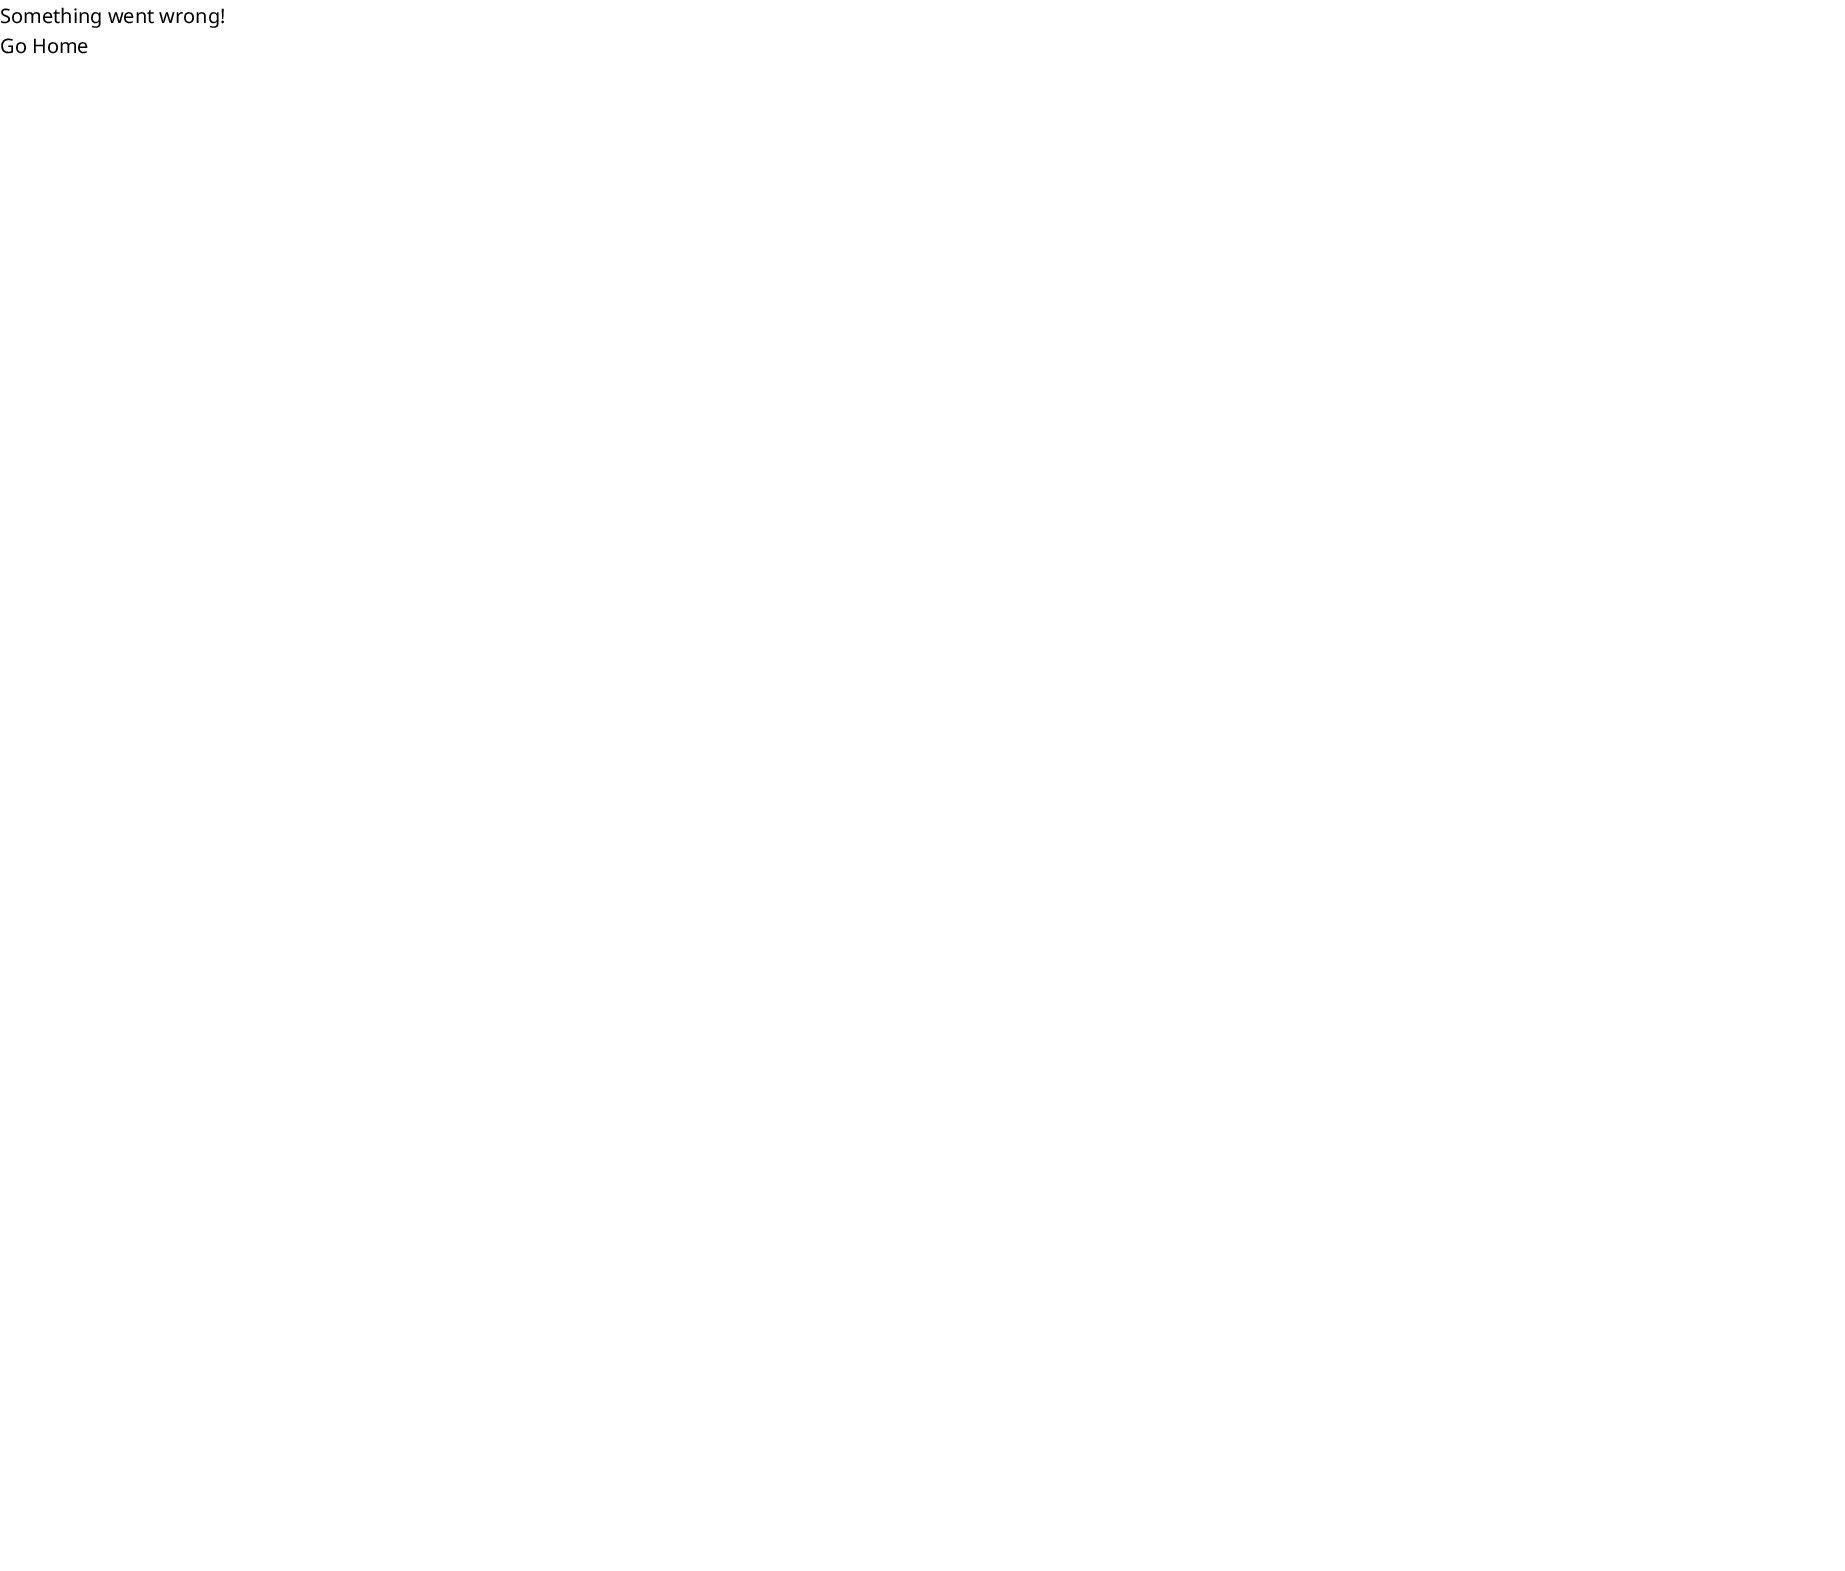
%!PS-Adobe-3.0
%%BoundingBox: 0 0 1845 1571
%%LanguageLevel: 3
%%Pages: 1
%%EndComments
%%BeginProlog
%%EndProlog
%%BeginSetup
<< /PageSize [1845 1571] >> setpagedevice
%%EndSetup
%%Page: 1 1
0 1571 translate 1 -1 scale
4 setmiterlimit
1 setgray
0 0 1845 1571 rectfill
/NotoSans-Regular [20 0 0 -20 0 0] selectfont
0 setgray
0 23 moveto (Something went wrong!) show
0 53 moveto (Go Home) show
showpage
%%EOF
